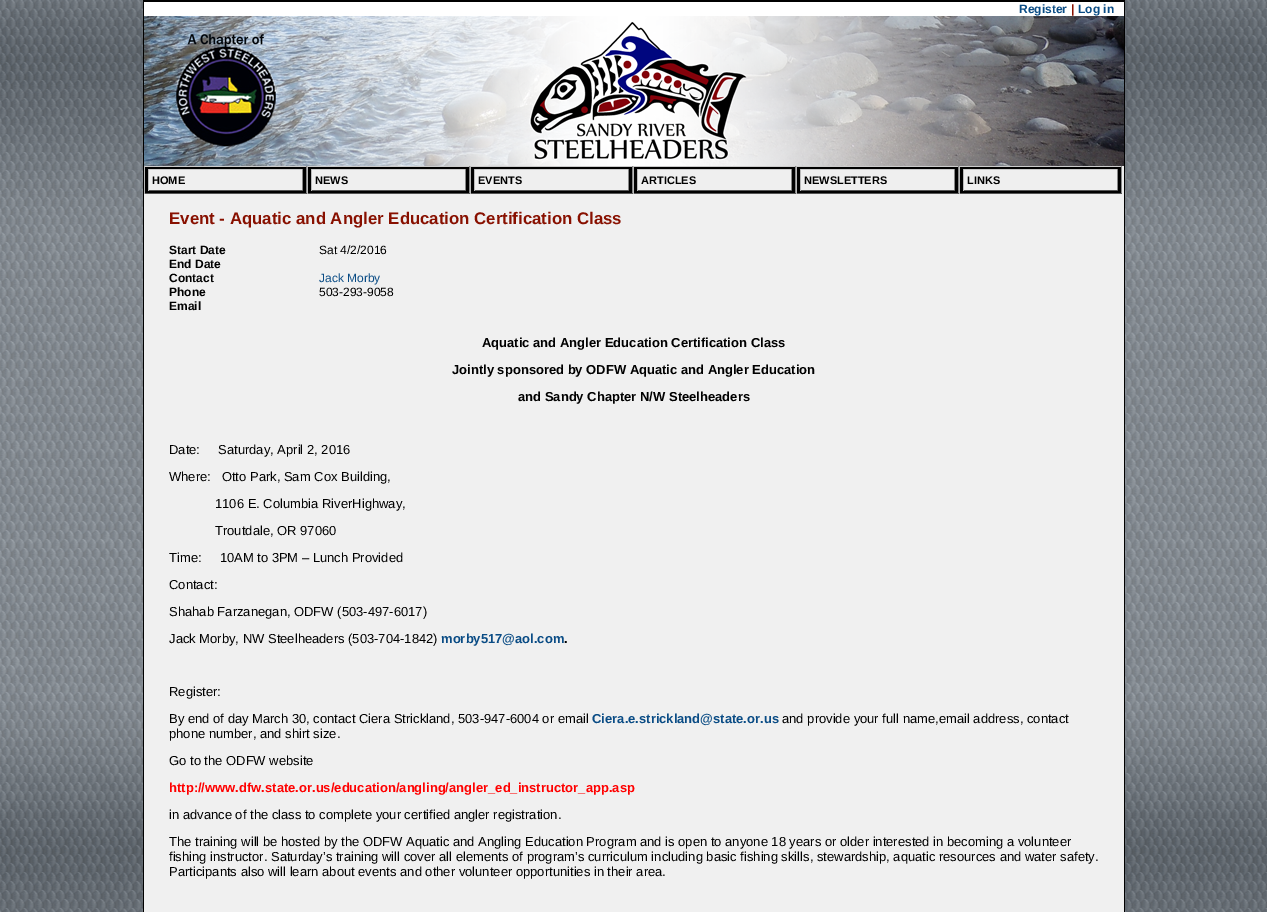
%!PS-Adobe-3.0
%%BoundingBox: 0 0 1267 912
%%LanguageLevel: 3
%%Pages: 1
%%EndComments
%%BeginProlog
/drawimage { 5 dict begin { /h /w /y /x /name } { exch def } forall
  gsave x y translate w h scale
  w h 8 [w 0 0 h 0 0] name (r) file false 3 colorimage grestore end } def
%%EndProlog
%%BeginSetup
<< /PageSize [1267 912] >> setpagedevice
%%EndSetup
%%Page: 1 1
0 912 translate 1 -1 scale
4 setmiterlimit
1 setgray
0 0 1267 912 rectfill
(images/1.raw) 0 0 1267 912 drawimage
0.941 setgray
144 194 980 718 rectfill
0 setgray
1124 0 1 912 rectfill
143 0 1 912 rectfill
1 setgray
144 2 980 14 rectfill
0 setgray
144 0 980 2 rectfill
(images/2.raw) 144 16 980 150 drawimage
0.933 setgray
1122 166 2 28 rectfill
0 setgray
145 167 161 26 rectfill
0.8 setgray
144 166 978 1 rectfill
0.533 setgray
306 166 1 28 rectfill
0.333 setgray
144 193 163 1 rectfill
0.733 setgray
144 166 1 28 rectfill
0.937 setgray
149 170 153 20 rectfill
0.8 setgray
148 169 155 1 rectfill
0.533 setgray
302 169 1 22 rectfill
0.333 setgray
148 190 155 1 rectfill
0.733 setgray
148 169 1 22 rectfill
0 setgray
308 167 161 26 rectfill
0.533 setgray
469 166 1 28 rectfill
0.333 setgray
307 193 163 1 rectfill
0.733 setgray
307 166 1 28 rectfill
0.937 setgray
312 170 153 20 rectfill
0.8 setgray
311 169 155 1 rectfill
0.533 setgray
465 169 1 22 rectfill
0.333 setgray
311 190 155 1 rectfill
0.733 setgray
311 169 1 22 rectfill
0 setgray
471 167 161 26 rectfill
0.533 setgray
632 166 1 28 rectfill
0.333 setgray
470 193 163 1 rectfill
0.733 setgray
470 166 1 28 rectfill
0.937 setgray
475 170 153 20 rectfill
0.8 setgray
474 169 155 1 rectfill
0.533 setgray
628 169 1 22 rectfill
0.333 setgray
474 190 155 1 rectfill
0.733 setgray
474 169 1 22 rectfill
0 setgray
634 167 161 26 rectfill
0.533 setgray
795 166 1 28 rectfill
0.333 setgray
633 193 163 1 rectfill
0.733 setgray
633 166 1 28 rectfill
0.937 setgray
638 170 153 20 rectfill
0.8 setgray
637 169 155 1 rectfill
0.533 setgray
791 169 1 22 rectfill
0.333 setgray
637 190 155 1 rectfill
0.733 setgray
637 169 1 22 rectfill
0 setgray
797 167 161 26 rectfill
0.533 setgray
958 166 1 28 rectfill
0.333 setgray
796 193 163 1 rectfill
0.733 setgray
796 166 1 28 rectfill
0.937 setgray
801 170 153 20 rectfill
0.8 setgray
800 169 155 1 rectfill
0.533 setgray
954 169 1 22 rectfill
0.333 setgray
800 190 155 1 rectfill
0.733 setgray
800 169 1 22 rectfill
0 setgray
960 167 161 26 rectfill
0.533 setgray
1121 166 1 28 rectfill
0.333 setgray
959 193 163 1 rectfill
0.733 setgray
959 166 1 28 rectfill
0.937 setgray
964 170 153 20 rectfill
0.8 setgray
963 169 155 1 rectfill
0.533 setgray
1117 169 1 22 rectfill
0.333 setgray
963 190 155 1 rectfill
0.733 setgray
963 169 1 22 rectfill
/LiberationSans-Bold [12 0 0 -12 0 0] selectfont
0.039 0.298 0.522 setrgbcolor
1019 13 moveto (Register) show
0.533 0.063 0 setrgbcolor
1071 13 moveto (|) show
0.039 0.298 0.522 setrgbcolor
1078 13 moveto (Log in) show
/LiberationSans-Bold [11 0 0 -11 0 0] selectfont
0 setgray
152 184 moveto (HOME) show
315 184 moveto (NEWS) show
478 184 moveto (EVENTS) show
641 184 moveto (ARTICLES) show
804 184 moveto (NEWSLETTERS) show
967 184 moveto (LINKS) show
/LiberationSans-Bold [16.8 0 0 -16.8 0 0] selectfont
0.533 0.063 0 setrgbcolor
169 224 moveto (Event - Aquatic and Angler Education Certification Class) show
/LiberationSans-Bold [12 0 0 -12 0 0] selectfont
0 setgray
169 254 moveto (Start Date) show
/LiberationSans-Regular [12 0 0 -12 0 0] selectfont
319 254 moveto (Sat 4/2/2016) show
/LiberationSans-Bold [12 0 0 -12 0 0] selectfont
169 268 moveto (End Date) show
169 282 moveto (Contact) show
/LiberationSans-Regular [12 0 0 -12 0 0] selectfont
0.039 0.298 0.522 setrgbcolor
319 282 moveto (Jack Morby) show
/LiberationSans-Bold [12 0 0 -12 0 0] selectfont
0 setgray
169 296 moveto (Phone) show
/LiberationSans-Regular [12 0 0 -12 0 0] selectfont
319 296 moveto (503-293-9058) show
/LiberationSans-Bold [12 0 0 -12 0 0] selectfont
169 310 moveto (Email) show
/LiberationSans-Bold [13 0 0 -13 0 0] selectfont
482 347 moveto (Aquatic and Angler Education Certification Class) show
452 374 moveto (Jointly sponsored by ODFW Aquatic and Angler Education) show
518 401 moveto (and Sandy Chapter N/W Steelheaders) show
/LiberationSans-Regular [13 0 0 -13 0 0] selectfont
169 454 moveto (Date:     Saturday, April 2, 2016) show
169 481 moveto (Where:   Otto Park, Sam Cox Building,) show
215 508 moveto (1106 E. Columbia RiverHighway,) show
215 535 moveto (Troutdale, OR 97060) show
169 562 moveto (Time:     10AM to 3PM – Lunch Provided) show
169 589 moveto (Contact:) show
169 616 moveto (Shahab Farzanegan, ODFW \(503-497-6017\)) show
169 643 moveto (Jack Morby, NW Steelheaders \(503-704-1842\)) show
/LiberationSans-Bold [13 0 0 -13 0 0] selectfont
0.039 0.298 0.522 setrgbcolor
441 643 moveto (morby517@aol.com) show
0 setgray
564 643 moveto (.) show
/LiberationSans-Regular [13 0 0 -13 0 0] selectfont
169 696 moveto (Register:) show
169 723 moveto (By end of day March 30, contact Ciera Strickland, 503-947-6004 or email) show
/LiberationSans-Bold [13 0 0 -13 0 0] selectfont
0.039 0.298 0.522 setrgbcolor
592 723 moveto (Ciera.e.strickland@state.or.us) show
/LiberationSans-Regular [13 0 0 -13 0 0] selectfont
0 setgray
782 723 moveto (and provide your full name,email address, contact) show
169 738 moveto (phone number, and shirt size.) show
169 765 moveto (Go to the ODFW website) show
/LiberationSans-Bold [13 0 0 -13 0 0] selectfont
1 0 0 setrgbcolor
169 792 moveto (http://www.dfw.state.or.us/education/angling/angler_ed_instructor_app.asp) show
/LiberationSans-Regular [13 0 0 -13 0 0] selectfont
0 setgray
169 819 moveto (in advance of the class to complete your certified angler registration.) show
169 846 moveto (The training will be hosted by the ODFW Aquatic and Angling Education Program and is open to anyone 18 years or older interested in becoming a volunteer) show
169 861 moveto (fishing instructor. Saturday’s training will cover all elements of program’s curriculum including basic fishing skills, stewardship, aquatic resources and water safety.) show
169 876 moveto (Participants also will learn about events and other volunteer opportunities in their area.) show
showpage
%%EOF
